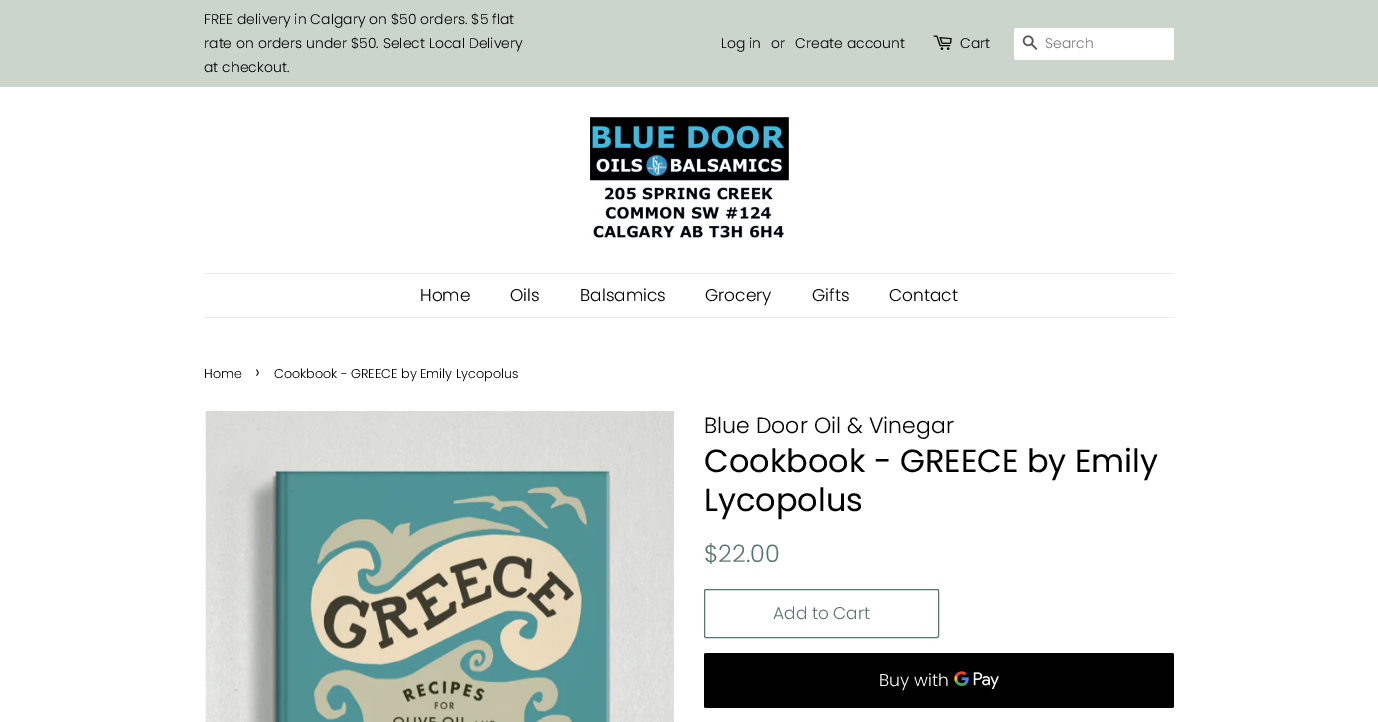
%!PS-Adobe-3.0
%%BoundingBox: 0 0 1378 722
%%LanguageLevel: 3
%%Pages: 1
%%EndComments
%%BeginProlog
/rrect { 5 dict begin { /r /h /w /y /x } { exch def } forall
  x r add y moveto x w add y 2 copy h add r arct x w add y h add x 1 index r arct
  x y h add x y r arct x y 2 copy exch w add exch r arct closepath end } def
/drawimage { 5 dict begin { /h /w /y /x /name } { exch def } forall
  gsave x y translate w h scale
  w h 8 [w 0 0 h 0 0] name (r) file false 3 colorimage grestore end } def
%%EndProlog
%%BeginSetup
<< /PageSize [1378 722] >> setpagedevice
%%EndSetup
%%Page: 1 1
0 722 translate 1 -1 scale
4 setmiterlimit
1 setgray
0 0 1378 722 rectfill
0.796 0.835 0.8 setrgbcolor
0 0 1378 87 rectfill
(images/1.raw) 933 35 19 15 drawimage
1 setgray
1014 28 160 32 2 rrect fill
(images/2.raw) 1022 35 16 15 drawimage
(images/3.raw) 590 117 199 124 drawimage
0.922 setgray
204 273 970 1 rectfill
204 317 970 1 rectfill
(images/4.raw) 204 411 470 311 drawimage
0.349 0.459 0.435 setrgbcolor
704.5 589.5 234 48 1.5 rrect stroke
0 setgray
704 653 470 55 2 rrect fill
(images/5.raw) 954 671 45 18 drawimage
/Poppins-Light [14 0 0 -14 0 0] selectfont
204 24 moveto (FREE delivery in Calgary on $50 orders. $5 flat) show
204 48 moveto (rate on orders under $50. Select Local Delivery) show
204 72 moveto (at checkout.) show
721 48 moveto (Log in) show
771 48 moveto (or) show
795 48 moveto (Create account) show
960 48 moveto (Cart) show
0.459 setgray
1045 48 moveto (Search) show
/Poppins-Light [17 0 0 -17 0 0] selectfont
0 setgray
420 301 moveto (Home) show
510 301 moveto (Oils) show
580 301 moveto (Balsamics) show
705 301 moveto (Grocery) show
812 301 moveto (Gifts) show
889 301 moveto (Contact) show
/Poppins-Light [12.75 0 0 -12.75 0 0] selectfont
204 378 moveto (Home) show
/Poppins-Light [18 0 0 -18 0 0] selectfont
255 378 moveto (›) show
/Poppins-Light [12.75 0 0 -12.75 0 0] selectfont
274 378 moveto (Cookbook - GREECE by Emily Lycopolus) show
/Poppins-Light [22 0 0 -22 0 0] selectfont
704 433 moveto (Blue Door Oil & Vinegar) show
/Poppins-Regular [32 0 0 -32 0 0] selectfont
704 472 moveto (Cookbook - GREECE by Emily) show
704 511 moveto (Lycopolus) show
/Poppins-Light [24 0 0 -24 0 0] selectfont
0.349 0.459 0.435 setrgbcolor
704 562 moveto ($22.00) show
/Poppins-Light [17 0 0 -17 0 0] selectfont
773 619 moveto (Add to Cart) show
1 setgray
879 686 moveto (Buy with) show
showpage
%%EOF
